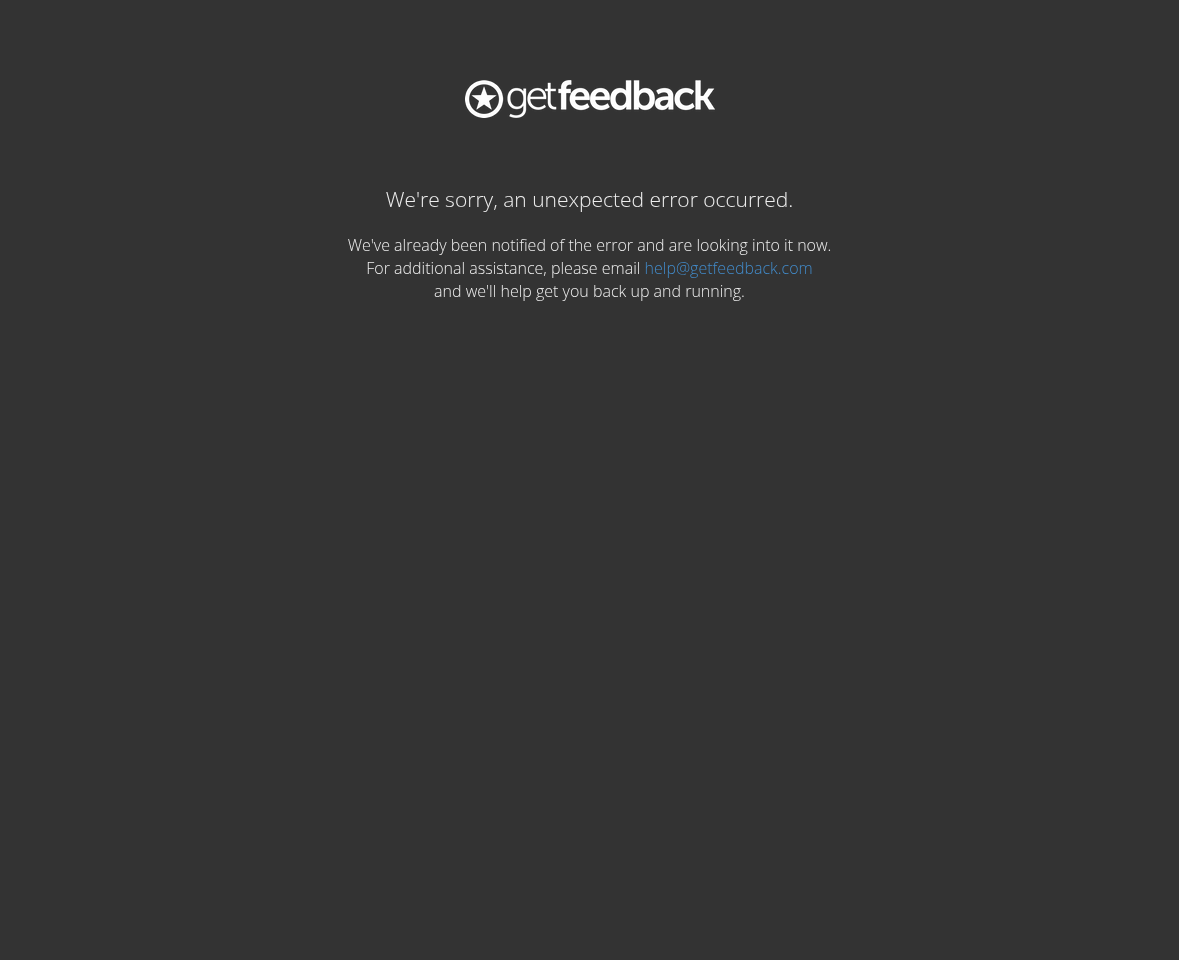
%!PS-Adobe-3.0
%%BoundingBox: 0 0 1179 960
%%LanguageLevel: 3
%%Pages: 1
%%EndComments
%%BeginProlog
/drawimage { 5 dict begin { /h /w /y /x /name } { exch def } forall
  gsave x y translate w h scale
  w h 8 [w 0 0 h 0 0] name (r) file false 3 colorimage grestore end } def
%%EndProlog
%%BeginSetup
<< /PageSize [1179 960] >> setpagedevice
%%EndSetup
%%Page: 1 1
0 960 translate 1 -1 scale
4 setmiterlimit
1 setgray
0 0 1179 960 rectfill
(images/1.raw) 0 0 1179 960 drawimage
showpage
%%EOF
